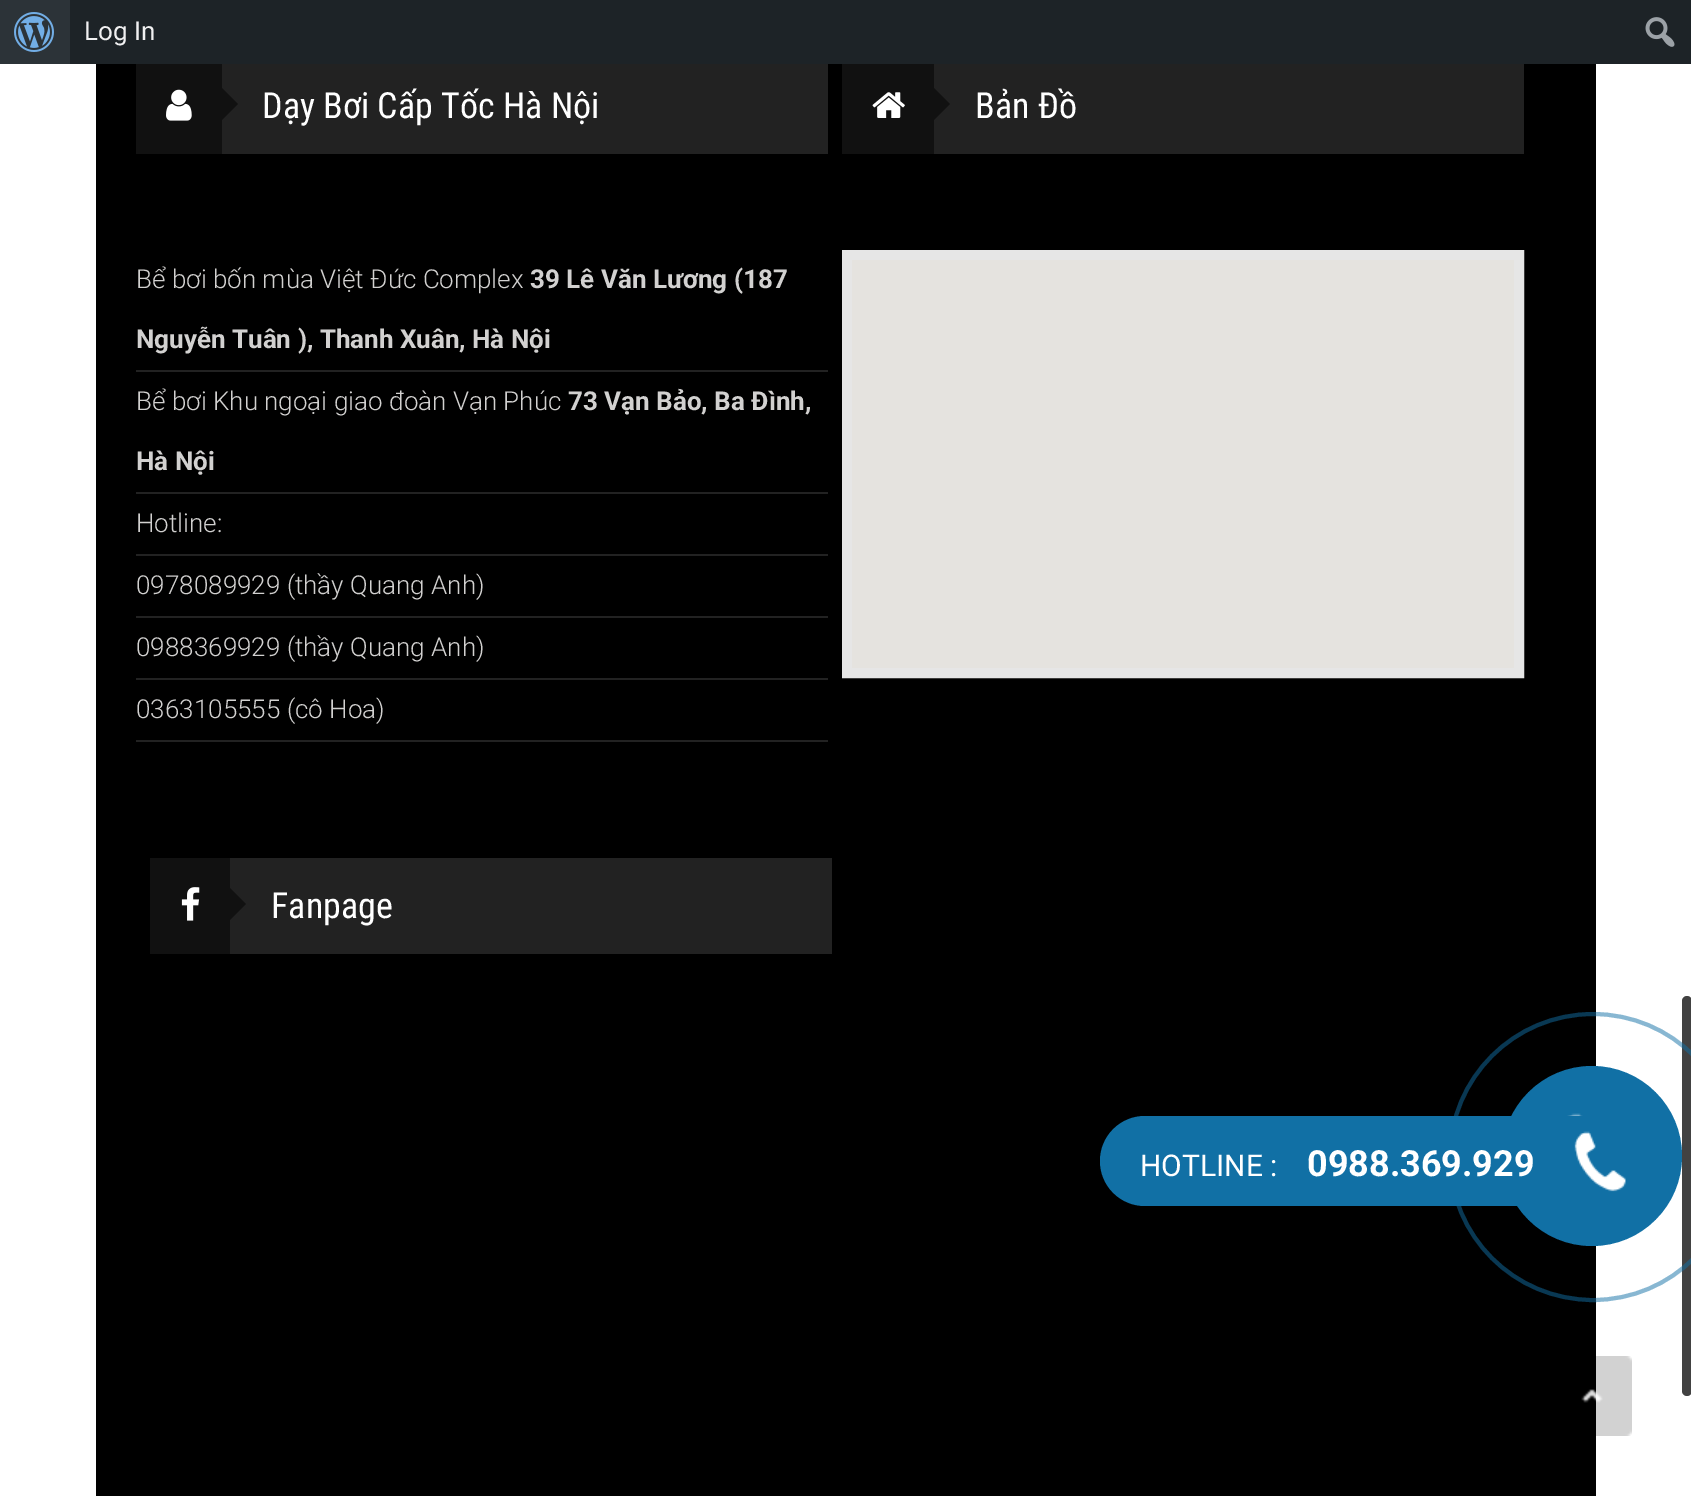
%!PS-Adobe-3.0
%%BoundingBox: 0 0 1691 1496
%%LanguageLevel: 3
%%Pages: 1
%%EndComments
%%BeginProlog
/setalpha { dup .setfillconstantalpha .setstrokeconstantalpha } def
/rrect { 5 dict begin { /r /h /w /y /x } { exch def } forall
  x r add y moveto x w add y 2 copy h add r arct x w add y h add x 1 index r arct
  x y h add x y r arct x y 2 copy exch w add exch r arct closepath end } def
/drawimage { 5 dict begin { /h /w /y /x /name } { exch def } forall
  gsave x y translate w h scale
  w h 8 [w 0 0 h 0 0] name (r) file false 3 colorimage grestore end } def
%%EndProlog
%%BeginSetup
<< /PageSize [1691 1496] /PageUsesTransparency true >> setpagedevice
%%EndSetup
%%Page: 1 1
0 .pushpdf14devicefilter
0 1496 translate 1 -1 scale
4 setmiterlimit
1 setgray
0 0 1691 1496 rectfill
0.114 0.137 0.153 setrgbcolor
70 0 1621 64 rectfill
0.173 0.2 0.22 setrgbcolor
0 0 70 64 rectfill
(images/1.raw) 14 12 40 40 drawimage
(images/2.raw) 1645 17 30 30 drawimage
0 setgray
96 64 1500 1432 rectfill
0.133 setgray
222 64 606 90 rectfill
0.067 setgray
136 64 86 90 rectfill
(images/3.raw) 166 89 26 32 drawimage
newpath 222 120 moveto 222 88 lineto 238 104 lineto closepath fill
0.133 setgray
136 370 692 2 rectfill
136 492 692 2 rectfill
136 554 692 2 rectfill
136 616 692 2 rectfill
136 678 692 2 rectfill
136 740 692 2 rectfill
934 64 590 90 rectfill
0.067 setgray
842 64 92 90 rectfill
(images/4.raw) 872 92 33 26 drawimage
newpath 934 120 moveto 934 88 lineto 950 104 lineto closepath fill
0.902 setgray
10 setlinewidth
847 255 672 418 rectstroke
0.898 0.89 0.875 setrgbcolor
852 260 662 408 rectfill
0.133 setgray
230 858 602 96 rectfill
0.067 setgray
150 858 80 96 rectfill
(images/5.raw) 181 887 19 34 drawimage
newpath 230 920 moveto 230 888 lineto 246 904 lineto closepath fill
0.259 setgray
1682 996 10 400 5 rrect fill
0.5 setalpha
0.067 0.439 0.647 setrgbcolor
4 setlinewidth
newpath 1593 1157 143 0 360 arc closepath stroke
1 setalpha
newpath 1592 1156 90 0 360 arc closepath fill
(images/6.raw) 1567 1113 16 3 drawimage
1100 1116 544 90 45 rrect fill
(images/7.raw) 1574 1131 52 61 drawimage
(images/8.raw) 1581 1356 51 80 drawimage
/Roboto-Regular [26 0 0 -26 0 0] selectfont
0.941 0.941 0.945 setrgbcolor
84 40 moveto (Log In) show
/RobotoCondensed-Regular [36 0 0 -36 0 0] selectfont
1 setgray
262 118 moveto (Dạy Bơi Cấp Tốc Hà Nội) show
/Roboto-Light [26 0 0 -26 0 0] selectfont
0.824 0.82 0.816 setrgbcolor
136 288 moveto (Bể bơi bốn mùa Việt Đức Complex) show
/Roboto-Bold [26 0 0 -26 0 0] selectfont
530 288 moveto (39 Lê Văn Lương \(187) show
136 348 moveto (Nguyễn Tuân \), Thanh Xuân, Hà Nội) show
/Roboto-Light [26 0 0 -26 0 0] selectfont
136 410 moveto (Bể bơi Khu ngoại giao đoàn Vạn Phúc) show
/Roboto-Bold [26 0 0 -26 0 0] selectfont
568 410 moveto (73 Vạn Bảo, Ba Đình,) show
136 470 moveto (Hà Nội) show
/Roboto-Light [26 0 0 -26 0 0] selectfont
136 532 moveto (Hotline:) show
136 594 moveto (0978089929 \(thầy Quang Anh\)) show
136 656 moveto (0988369929 \(thầy Quang Anh\)) show
136 718 moveto (0363105555 \(cô Hoa\)) show
/RobotoCondensed-Regular [36 0 0 -36 0 0] selectfont
1 setgray
975 118 moveto (Bản Đồ) show
271 918 moveto (Fanpage) show
/Roboto-Regular [30 0 0 -30 0 0] selectfont
1140 1176 moveto (HOTLINE :) show
/Roboto-Bold [36 0 0 -36 0 0] selectfont
1307 1176 moveto (0988.369.929) show
.poppdf14devicefilter showpage
%%EOF
